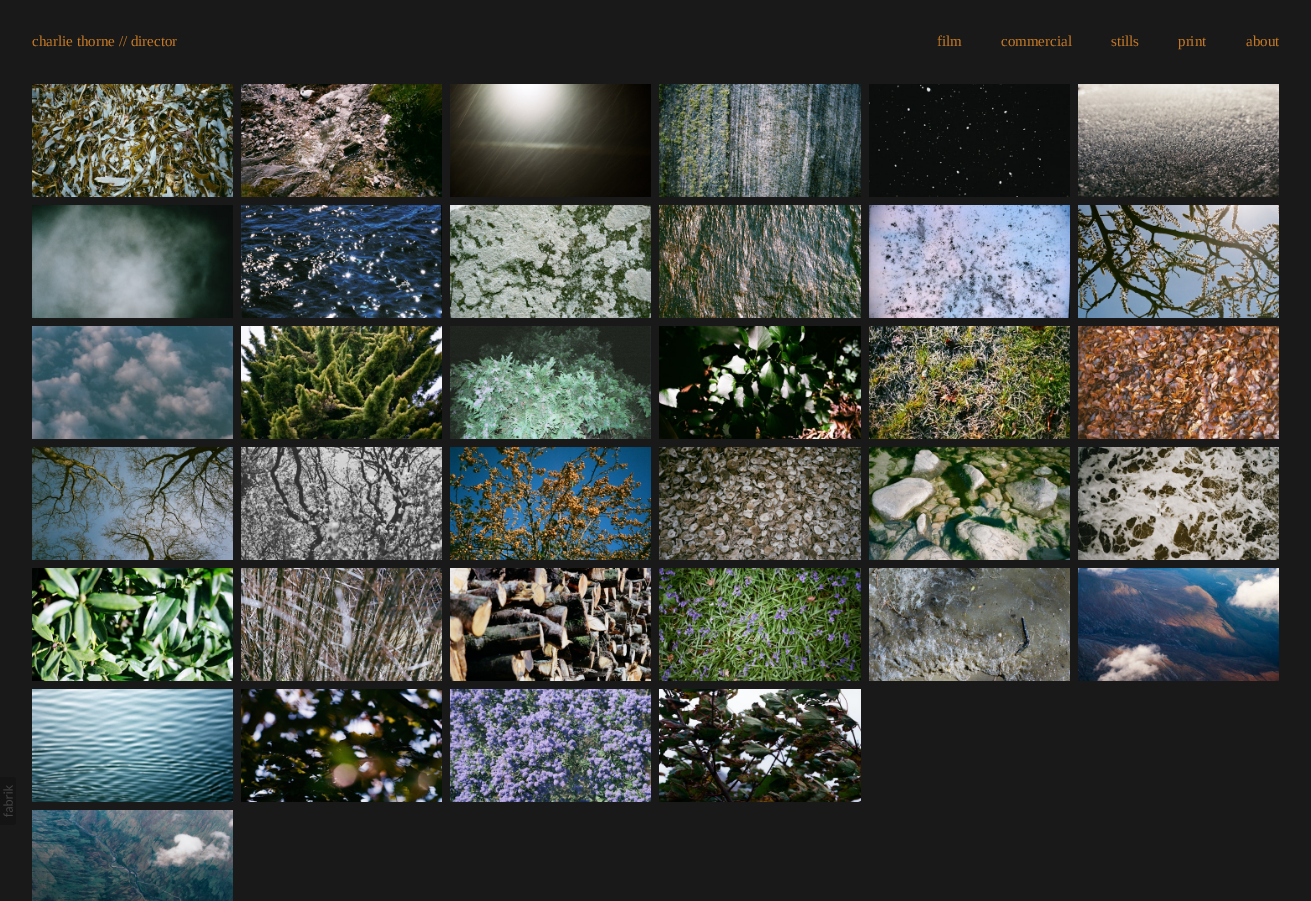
%!PS-Adobe-3.0
%%BoundingBox: 0 0 1311 901
%%LanguageLevel: 3
%%Pages: 1
%%EndComments
%%BeginProlog
/drawimage { 5 dict begin { /h /w /y /x /name } { exch def } forall
  gsave x y translate w h scale
  w h 8 [w 0 0 h 0 0] name (r) file false 3 colorimage grestore end } def
%%EndProlog
%%BeginSetup
<< /PageSize [1311 901] >> setpagedevice
%%EndSetup
%%Page: 1 1
0 901 translate 1 -1 scale
4 setmiterlimit
0.098 setgray
0 0 1311 901 rectfill
(images/1.raw) 32 84 201 113 drawimage
(images/2.raw) 241 84 201 113 drawimage
(images/3.raw) 450 84 201 113 drawimage
(images/4.raw) 659 84 202 113 drawimage
(images/5.raw) 869 84 201 113 drawimage
(images/6.raw) 1078 84 201 113 drawimage
(images/7.raw) 32 205 201 113 drawimage
(images/8.raw) 241 205 201 113 drawimage
(images/9.raw) 450 205 201 113 drawimage
(images/10.raw) 659 205 202 113 drawimage
(images/11.raw) 869 205 201 113 drawimage
(images/12.raw) 1078 205 201 113 drawimage
(images/13.raw) 32 326 201 113 drawimage
(images/14.raw) 241 326 201 113 drawimage
(images/15.raw) 450 326 201 113 drawimage
(images/16.raw) 659 326 202 113 drawimage
(images/17.raw) 869 326 201 113 drawimage
(images/18.raw) 1078 326 201 113 drawimage
(images/19.raw) 32 447 201 113 drawimage
(images/20.raw) 241 447 201 113 drawimage
(images/21.raw) 450 447 201 113 drawimage
(images/22.raw) 659 447 202 113 drawimage
(images/23.raw) 869 447 201 113 drawimage
(images/24.raw) 1078 447 201 113 drawimage
(images/25.raw) 32 568 201 113 drawimage
(images/26.raw) 241 568 201 113 drawimage
(images/27.raw) 450 568 201 113 drawimage
(images/28.raw) 659 568 202 113 drawimage
(images/29.raw) 869 568 201 113 drawimage
(images/30.raw) 1078 568 201 113 drawimage
(images/31.raw) 32 689 201 113 drawimage
(images/32.raw) 241 689 201 113 drawimage
(images/33.raw) 450 689 201 113 drawimage
(images/34.raw) 659 689 202 113 drawimage
(images/35.raw) 32 810 201 91 drawimage
(images/36.raw) 0 777 16 48 drawimage
/LiberationSerif-Regular [15 0 0 -15 0 0] selectfont
0.773 0.475 0.145 setrgbcolor
32 46 moveto (charlie thorne // director) show
937 46 moveto (film) show
1001 46 moveto (commercial) show
1111 46 moveto (stills) show
1178 46 moveto (print) show
1246 46 moveto (about) show
showpage
%%EOF
